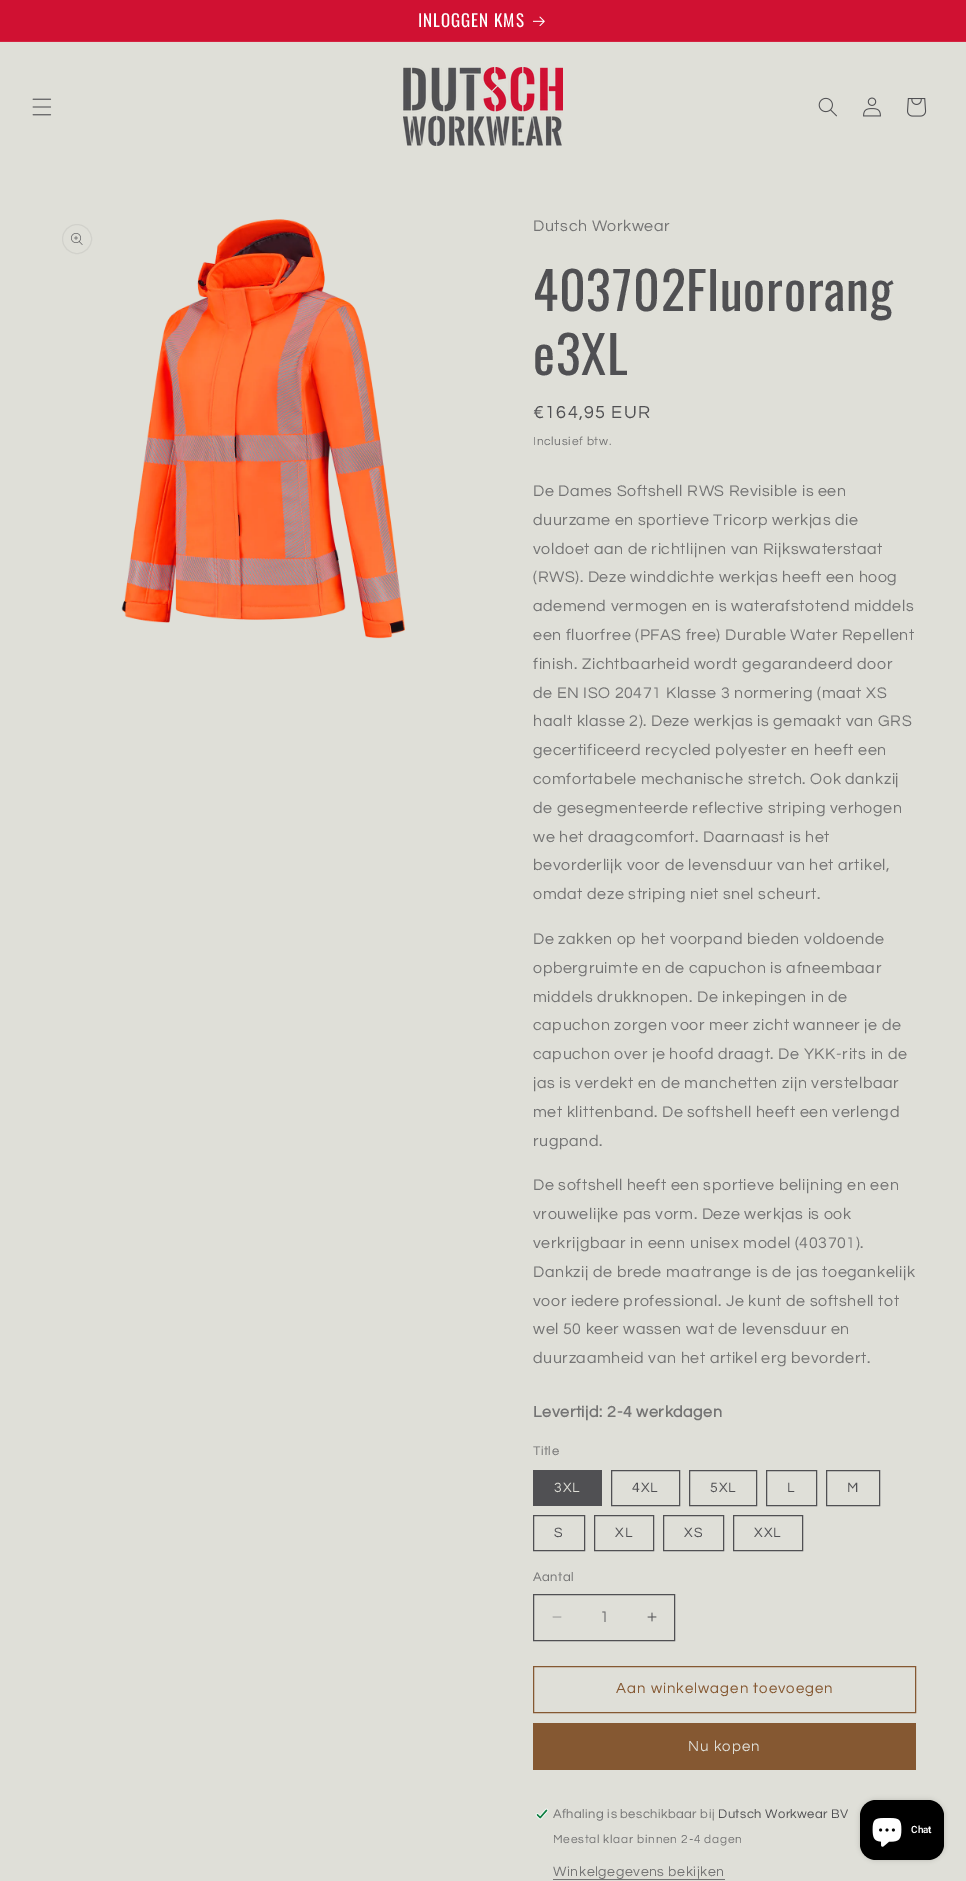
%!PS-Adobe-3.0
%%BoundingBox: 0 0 966 1881
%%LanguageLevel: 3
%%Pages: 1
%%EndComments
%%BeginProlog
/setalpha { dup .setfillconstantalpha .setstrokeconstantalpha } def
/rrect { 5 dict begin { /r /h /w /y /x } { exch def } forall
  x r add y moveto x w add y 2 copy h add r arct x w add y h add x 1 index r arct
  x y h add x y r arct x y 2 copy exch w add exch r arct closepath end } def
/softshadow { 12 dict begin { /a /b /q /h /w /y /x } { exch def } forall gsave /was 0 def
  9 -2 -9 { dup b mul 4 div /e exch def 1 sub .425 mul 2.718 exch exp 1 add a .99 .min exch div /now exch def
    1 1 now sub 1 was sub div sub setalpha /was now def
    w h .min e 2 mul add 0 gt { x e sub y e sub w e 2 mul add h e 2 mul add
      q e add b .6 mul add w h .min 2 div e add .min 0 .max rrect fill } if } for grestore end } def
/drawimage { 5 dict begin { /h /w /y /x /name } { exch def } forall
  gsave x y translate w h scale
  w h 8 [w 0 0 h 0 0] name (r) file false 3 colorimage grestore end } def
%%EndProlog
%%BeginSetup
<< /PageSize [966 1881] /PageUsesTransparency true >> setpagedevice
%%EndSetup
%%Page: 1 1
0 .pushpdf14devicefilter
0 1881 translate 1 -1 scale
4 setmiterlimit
0.875 0.875 0.847 setrgbcolor
0 0 966 1881 rectfill
0.816 0.067 0.196 setrgbcolor
0 0 966 41 rectfill
0.831 0.141 0.259 setrgbcolor
0 41 966 1 rectfill
(images/1.raw) 533 16 12 10 drawimage
(images/2.raw) 32 98 20 18 drawimage
(images/3.raw) 403 67 160 79 drawimage
(images/4.raw) 818 97 19 20 drawimage
(images/5.raw) 863 97 18 20 drawimage
(images/6.raw) 907 98 20 19 drawimage
0.82 0.82 0.796 setrgbcolor
newpath 77 239 14.5 0 360 arc closepath stroke
(images/7.raw) 71 233 12 12 drawimage
(images/8.raw) 121 219 284 420 drawimage
0.314 0.314 0.325 setrgbcolor
533 1470 69 36 rectfill
611.5 1470.5 68 35 rectstroke
689.5 1470.5 67 35 rectstroke
766.5 1470.5 50 35 rectstroke
826.5 1470.5 53 35 rectstroke
533.5 1515.5 51 35 rectstroke
594.5 1515.5 59 35 rectstroke
663.5 1515.5 60 35 rectstroke
733.5 1515.5 69 35 rectstroke
(images/9.raw) 552 1616 10 2 drawimage
(images/10.raw) 647 1612 10 10 drawimage
533.5 1594.5 141 46 rectstroke
0.522 0.345 0.196 setrgbcolor
533.5 1666.5 382 46 rectstroke
533 1723 383 47 rectfill
(images/11.raw) 535 1808 14 12 drawimage
0.455 setgray
553 1879 172 1 rectfill
0 setgray
860 1800 84 60 16 2.5 0.15 softshadow
860 1800 84 60 16 rrect fill
(images/12.raw) 872 1818 30 29 drawimage
/Oswald-Regular [17 0 0 -17 0 0] selectfont
1 setgray
418 27 moveto 1 0 (INLOGGEN KMS) ashow
/Questrial-Regular [16 0 0 -16 0 0] selectfont
0.455 setgray
533 231 moveto 0.6 0 (Dutsch Workwear) ashow
/Oswald-Regular [52 0 0 -52 0 0] selectfont
0.314 0.314 0.325 setrgbcolor
533 311 moveto 0.75 0 (403702Fluororang) ashow
533 375 moveto 0.75 0 (e3XL) ashow
/Questrial-Regular [18 0 0 -18 0 0] selectfont
533 418 moveto 1.25 0 (€164,95 EUR) ashow
/Questrial-Regular [12 0 0 -12 0 0] selectfont
0.455 setgray
533 445 moveto 0.7 0 (Inclusief btw.) ashow
/Questrial-Regular [16 0 0 -16 0 0] selectfont
533 496 moveto 0.6 0 (De Dames Softshell RWS Revisible is een) ashow
533 525 moveto 0.6 0 (duurzame en sportieve Tricorp werkjas die) ashow
533 554 moveto 0.6 0 (voldoet aan de richtlijnen van Rijkswaterstaat) ashow
533 582 moveto 0.6 0 (\(RWS\). Deze winddichte werkjas heeft een hoog) ashow
533 611 moveto 0.6 0 (ademend vermogen en is waterafstotend middels) ashow
533 640 moveto 0.6 0 (een fluorfree \(PFAS free\) Durable Water Repellent) ashow
533 669 moveto 0.6 0 (finish. Zichtbaarheid wordt gegarandeerd door) ashow
533 698 moveto 0.6 0 (de EN ISO 20471 Klasse 3 normering \(maat XS) ashow
533 726 moveto 0.6 0 (haalt klasse 2\). Deze werkjas is gemaakt van GRS) ashow
533 755 moveto 0.6 0 (gecertificeerd recycled polyester en heeft een) ashow
533 784 moveto 0.6 0 (comfortabele mechanische stretch. Ook dankzij) ashow
533 813 moveto 0.6 0 (de gesegmenteerde reflective striping verhogen) ashow
533 842 moveto 0.6 0 (we het draagcomfort. Daarnaast is het) ashow
533 870 moveto 0.6 0 (bevorderlijk voor de levensduur van het artikel,) ashow
533 899 moveto 0.6 0 (omdat deze striping niet snel scheurt.) ashow
533 944 moveto 0.6 0 (De zakken op het voorpand bieden voldoende) ashow
533 973 moveto 0.6 0 (opbergruimte en de capuchon is afneembaar) ashow
533 1002 moveto 0.6 0 (middels drukknopen. De inkepingen in de) ashow
533 1030 moveto 0.6 0 (capuchon zorgen voor meer zicht wanneer je de) ashow
533 1059 moveto 0.6 0 (capuchon over je hoofd draagt. De YKK-rits in de) ashow
533 1088 moveto 0.6 0 (jas is verdekt en de manchetten zijn verstelbaar) ashow
533 1117 moveto 0.6 0 (met klittenband. De softshell heeft een verlengd) ashow
533 1146 moveto 0.6 0 (rugpand.) ashow
533 1190 moveto 0.6 0 (De softshell heeft een sportieve belijning en een) ashow
533 1219 moveto 0.6 0 (vrouwelijke pas vorm. Deze werkjas is ook) ashow
533 1248 moveto 0.6 0 (verkrijgbaar in eenn unisex model \(403701\).) ashow
533 1277 moveto 0.6 0 (Dankzij de brede maatrange is de jas toegankelijk) ashow
533 1306 moveto 0.6 0 (voor iedere professional. Je kunt de softshell tot) ashow
533 1334 moveto 0.6 0 (wel 50 keer wassen wat de levensduur en) ashow
533 1363 moveto 0.6 0 (duurzaamheid van het artikel erg bevordert.) ashow
/Questrial-Bold [16 0 0 -16 0 0] selectfont
533 1417 moveto 0.6 0 (Levertijd: 2-4 werkdagen) ashow
/Questrial-Regular [13 0 0 -13 0 0] selectfont
533 1455 moveto 0.4 0 (Title) ashow
/Questrial-Regular [14 0 0 -14 0 0] selectfont
0.875 0.875 0.847 setrgbcolor
554 1492 moveto 1 0 (3XL) ashow
0.314 0.314 0.325 setrgbcolor
632 1492 moveto 1 0 (4XL) ashow
710 1492 moveto 1 0 (5XL) ashow
787 1492 moveto 1 0 (L) ashow
847 1492 moveto 1 0 (M) ashow
554 1537 moveto 1 0 (S) ashow
615 1537 moveto 1 0 (XL) ashow
684 1537 moveto 1 0 (XS) ashow
754 1537 moveto 1 0 (XXL) ashow
/Questrial-Regular [13 0 0 -13 0 0] selectfont
0.455 setgray
533 1581 moveto 0.4 0 (Aantal) ashow
/Questrial-Regular [16 0 0 -16 0 0] selectfont
0.396 0.396 0.404 setrgbcolor
600 1622 moveto (1) show
/Questrial-Regular [15 0 0 -15 0 0] selectfont
0.522 0.345 0.196 setrgbcolor
616 1693 moveto 1 0 (Aan winkelwagen toevoegen) ashow
0.875 0.875 0.847 setrgbcolor
688 1751 moveto 1 0 (Nu kopen) ashow
/Questrial-Regular [13 0 0 -13 0 0] selectfont
0.455 setgray
553 1818 moveto 0.4 0 (Afhaling is beschikbaar bij) ashow
0.314 0.314 0.325 setrgbcolor
718 1818 moveto 0.4 0 (Dutsch Workwear BV) ashow
/Questrial-Regular [12 0 0 -12 0 0] selectfont
0.455 setgray
553 1843 moveto 0.7 0 (Meestal klaar binnen 2-4 dagen) ashow
/Questrial-Regular [14 0 0 -14 0 0] selectfont
553 1876 moveto 0.6 0 (Winkelgegevens bekijken) ashow
/Roboto-SemiBold [10 0 0 -10 0 0] selectfont
1 setgray
911 1833 moveto (Chat) show
.poppdf14devicefilter showpage
%%EOF
